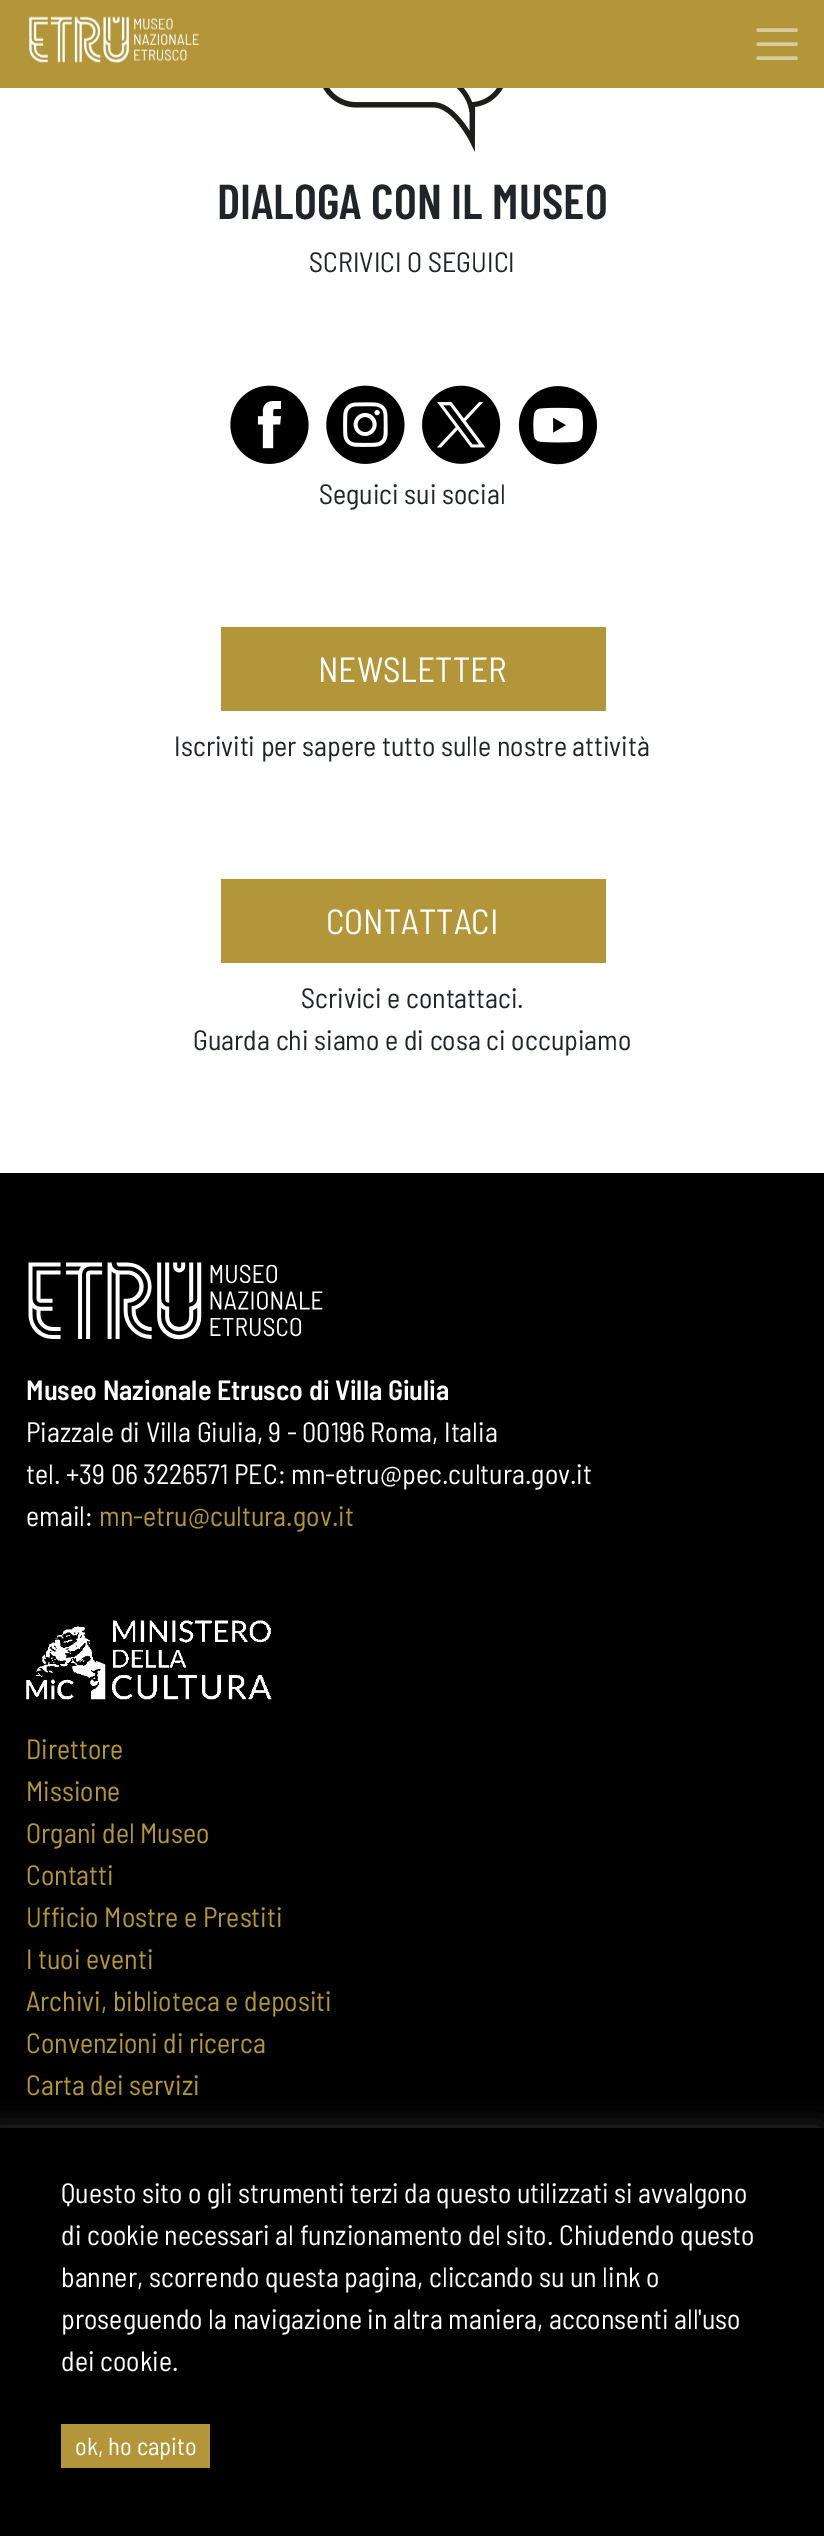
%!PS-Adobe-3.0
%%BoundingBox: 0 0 824 2536
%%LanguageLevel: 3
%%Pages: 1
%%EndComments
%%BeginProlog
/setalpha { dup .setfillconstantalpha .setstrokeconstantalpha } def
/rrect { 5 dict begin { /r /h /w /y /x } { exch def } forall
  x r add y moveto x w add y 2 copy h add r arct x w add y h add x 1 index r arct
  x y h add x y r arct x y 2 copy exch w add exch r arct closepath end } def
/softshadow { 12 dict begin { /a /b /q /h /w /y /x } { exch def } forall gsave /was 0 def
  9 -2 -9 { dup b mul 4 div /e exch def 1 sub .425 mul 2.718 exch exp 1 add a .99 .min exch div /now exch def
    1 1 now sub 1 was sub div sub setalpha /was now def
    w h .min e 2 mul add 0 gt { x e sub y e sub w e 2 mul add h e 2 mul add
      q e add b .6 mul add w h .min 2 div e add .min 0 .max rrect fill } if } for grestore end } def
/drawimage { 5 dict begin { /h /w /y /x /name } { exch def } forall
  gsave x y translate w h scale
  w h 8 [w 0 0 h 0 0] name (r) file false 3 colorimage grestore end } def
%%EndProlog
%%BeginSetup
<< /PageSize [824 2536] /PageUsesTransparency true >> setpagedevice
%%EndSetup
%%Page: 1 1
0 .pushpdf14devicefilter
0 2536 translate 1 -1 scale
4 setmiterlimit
1 setgray
0 0 824 2536 rectfill
0.702 0.588 0.227 setrgbcolor
0 0 824 88 rectfill
(images/1.raw) 29 16 170 47 drawimage
0.851 0.796 0.616 setrgbcolor
3.5 setlinewidth
1 setlinecap
newpath 758 30 moveto 796 30 lineto 758 44 moveto 796 44 lineto 758 58 moveto 796 58 lineto stroke
(images/2.raw) 323 88 180 64 drawimage
(images/3.raw) 230 385 79 79 drawimage
(images/4.raw) 326 385 79 79 drawimage
(images/5.raw) 422 385 79 79 drawimage
(images/6.raw) 518 386 79 79 drawimage
0.702 0.588 0.227 setrgbcolor
221 627 385 84 rectfill
221 879 385 84 rectfill
0 setgray
0 1173 824 1363 rectfill
(images/7.raw) 28 1262 295 78 drawimage
(images/8.raw) 26 1620 246 80 drawimage
gsave
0 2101 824 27 rectclip
0.2 setgray
-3 2128 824 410 0 13 1 softshadow
grestore
0.702 0.588 0.227 setrgbcolor
61 2424 149 44 rectfill
/BarlowCondensed-SemiBold [49 0 0 -49 0 0] selectfont
0.129 0.145 0.161 setrgbcolor
217 219 moveto (DIALOGA CON IL MUSEO) show
/BarlowSemiCondensed-Regular [28 0 0 -28 0 0] selectfont
309 272 moveto (SCRIVICI O SEGUICI) show
319 504 moveto (Seguici sui social) show
/BarlowSemiCondensed-Regular [35 0 0 -35 0 0] selectfont
1 setgray
318 682 moveto (NEWSLETTER) show
/BarlowSemiCondensed-Regular [28 0 0 -28 0 0] selectfont
0.129 0.145 0.161 setrgbcolor
174 756 moveto (Iscriviti per sapere tutto sulle nostre attività) show
/BarlowSemiCondensed-Regular [35 0 0 -35 0 0] selectfont
1 setgray
326 934 moveto (CONTATTACI) show
/BarlowSemiCondensed-Regular [28 0 0 -28 0 0] selectfont
0.129 0.145 0.161 setrgbcolor
301 1008 moveto (Scrivici e contattaci.) show
193 1050 moveto (Guarda chi siamo e di cosa ci occupiamo) show
/BarlowSemiCondensed-SemiBold [28 0 0 -28 0 0] selectfont
1 setgray
26 1400 moveto (Museo Nazionale Etrusco di Villa Giulia) show
/BarlowSemiCondensed-Regular [28 0 0 -28 0 0] selectfont
26 1442 moveto (Piazzale di Villa Giulia, 9 - 00196 Roma, Italia) show
26 1484 moveto (tel. +39 06 3226571 PEC: mn-etru@pec.cultura.gov.it) show
26 1526 moveto (email:) show
0.702 0.588 0.227 setrgbcolor
99 1526 moveto (mn-etru@cultura.gov.it) show
26 1759 moveto (Direttore) show
26 1801 moveto (Missione) show
26 1843 moveto (Organi del Museo) show
26 1885 moveto (Contatti) show
26 1927 moveto (Ufficio Mostre e Prestiti) show
26 1969 moveto (I tuoi eventi) show
26 2011 moveto (Archivi, biblioteca e depositi) show
26 2053 moveto (Convenzioni di ricerca) show
26 2095 moveto (Carta dei servizi) show
1 setgray
61 2203 moveto (Questo sito o gli strumenti terzi da questo utilizzati si avvalgono) show
61 2245 moveto (di cookie necessari al funzionamento del sito. Chiudendo questo) show
61 2287 moveto (banner, scorrendo questa pagina, cliccando su un link o) show
61 2329 moveto (proseguendo la navigazione in altra maniera, acconsenti all'uso) show
61 2371 moveto (dei cookie.) show
/BarlowSemiCondensed-Regular [24.5 0 0 -24.5 0 0] selectfont
75 2455 moveto (ok, ho capito) show
.poppdf14devicefilter showpage
%%EOF
